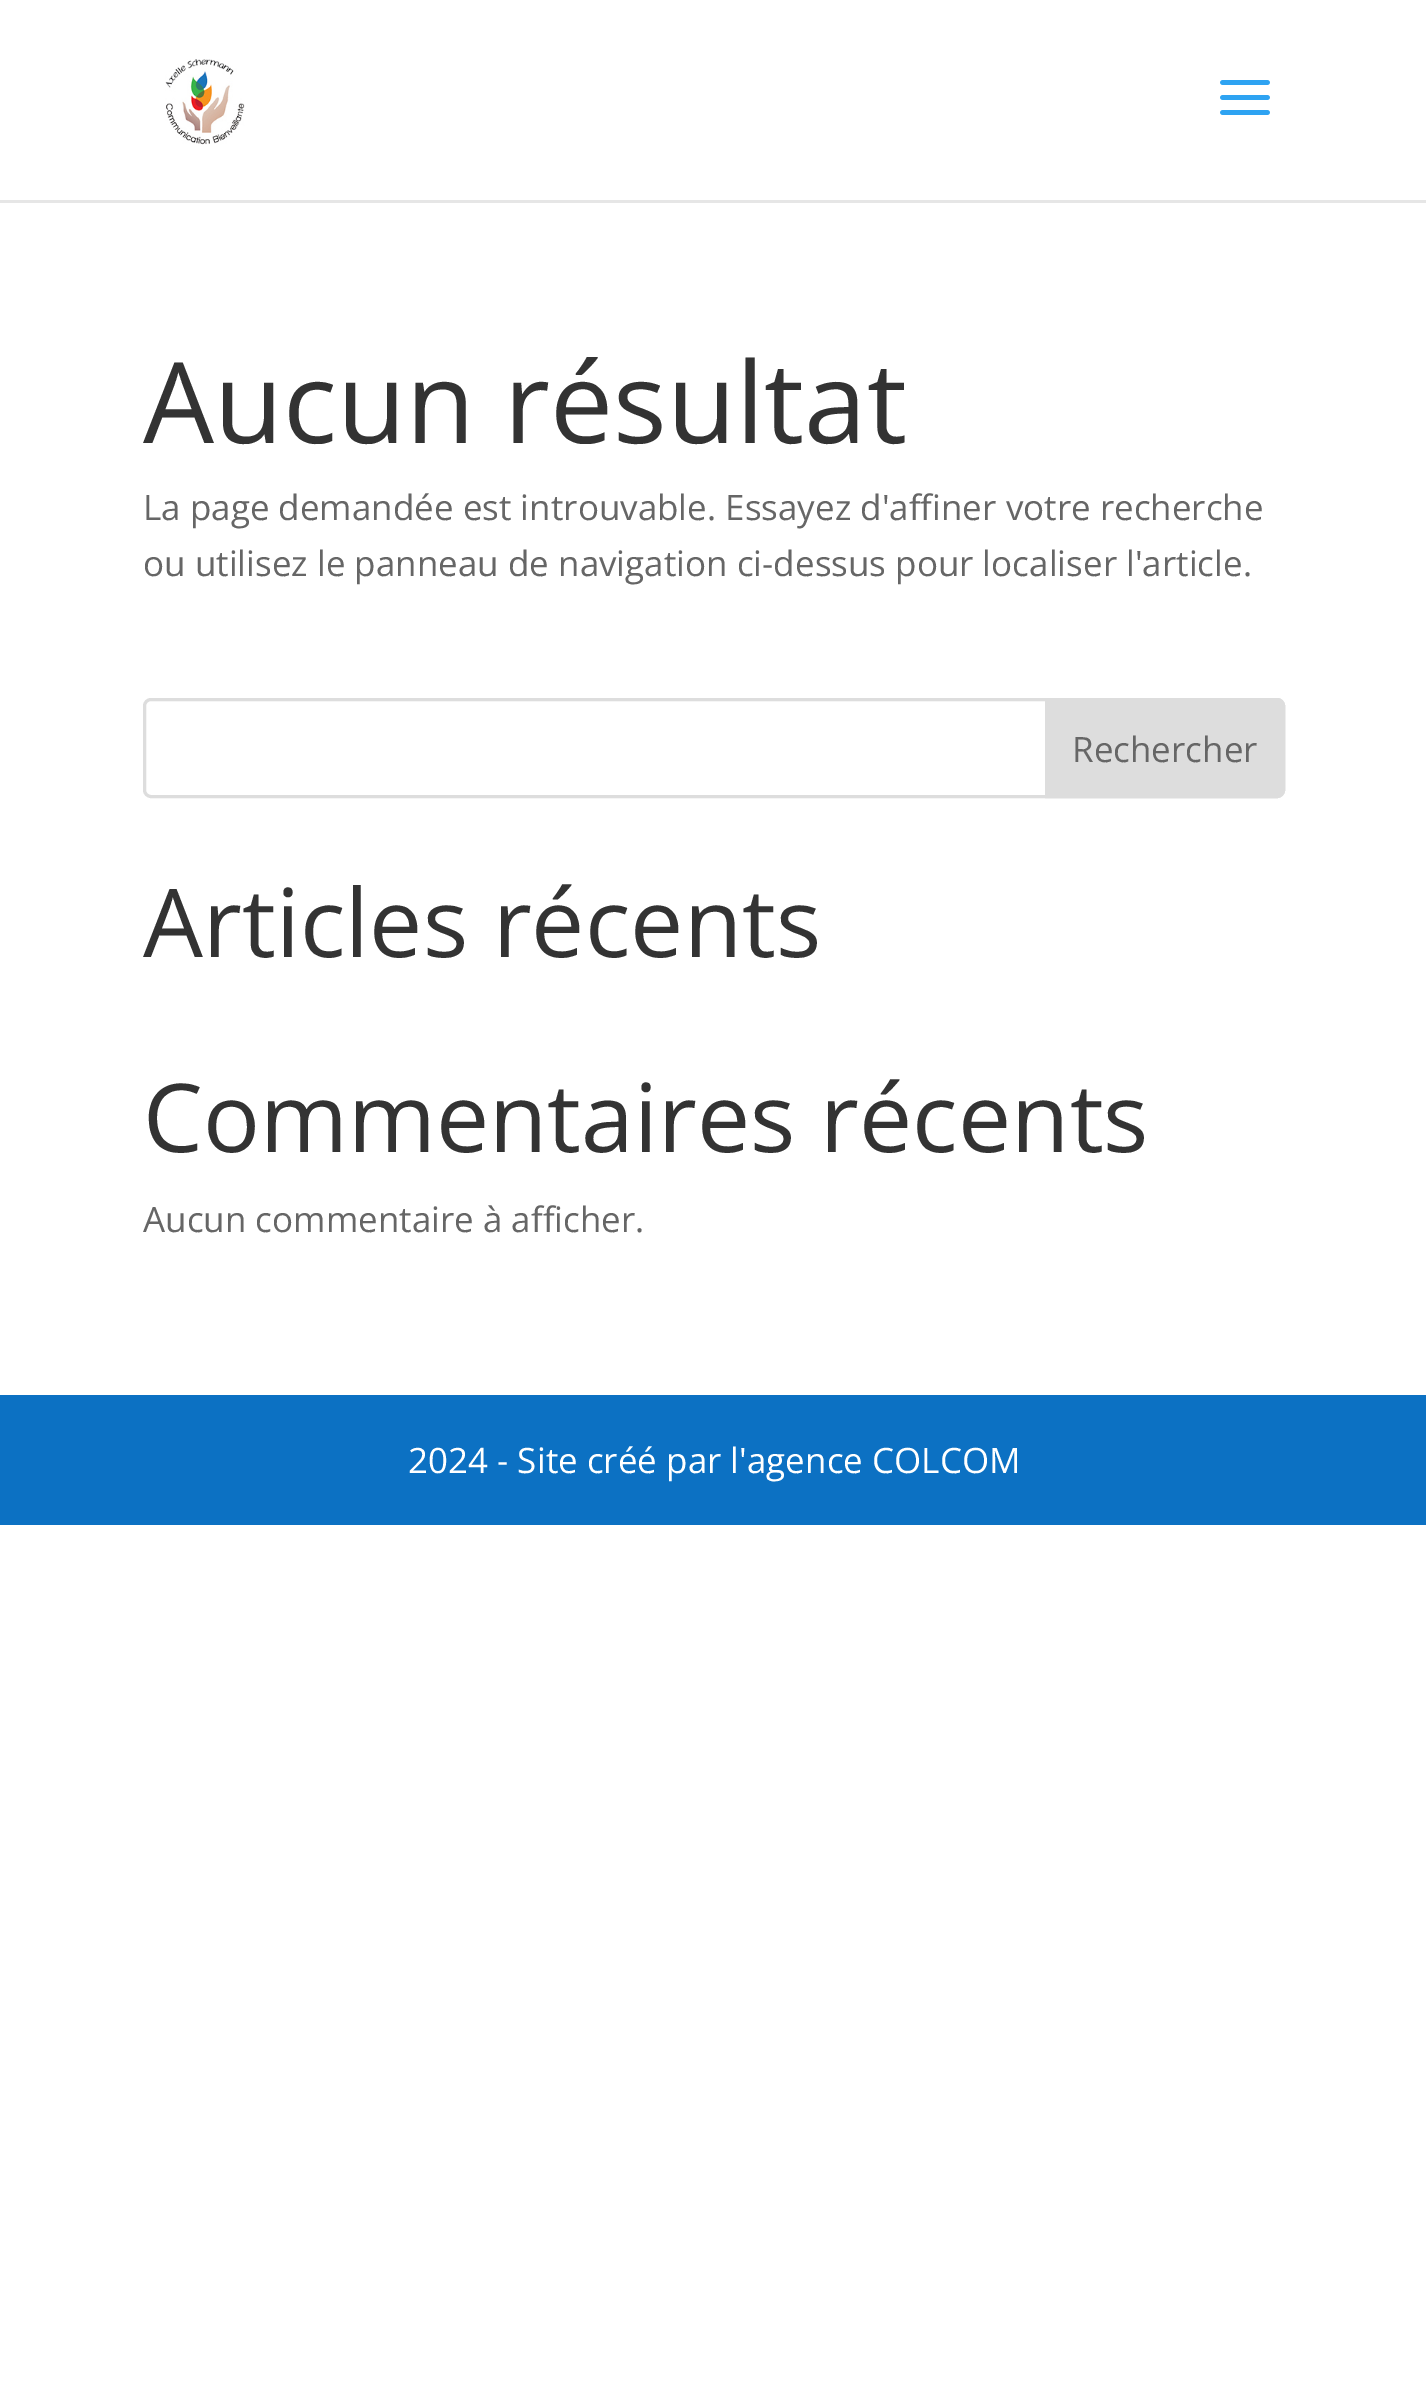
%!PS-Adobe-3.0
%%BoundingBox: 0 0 1426 2394
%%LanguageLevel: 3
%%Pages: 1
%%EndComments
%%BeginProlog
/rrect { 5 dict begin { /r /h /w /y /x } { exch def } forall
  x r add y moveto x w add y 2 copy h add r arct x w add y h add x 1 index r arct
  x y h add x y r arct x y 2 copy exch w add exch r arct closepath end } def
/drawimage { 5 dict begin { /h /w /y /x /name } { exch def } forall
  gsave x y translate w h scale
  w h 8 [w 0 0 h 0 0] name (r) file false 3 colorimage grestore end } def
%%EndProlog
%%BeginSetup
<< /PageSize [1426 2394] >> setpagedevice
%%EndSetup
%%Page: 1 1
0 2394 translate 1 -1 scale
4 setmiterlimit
1 setgray
0 0 1426 2394 rectfill
0.902 setgray
newpath 0 200 moveto 0 203 lineto 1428 203 lineto 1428 3 lineto 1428 200 lineto closepath fill
(images/1.raw) 165 59 80 86 drawimage
(images/2.raw) 1220 80 50 35 drawimage
0.867 setgray
3 setlinewidth
144.5 699.5 1139 97 6.5 rrect stroke
newpath 1046.5 699.5 moveto 1277 699.5 lineto 1280.5 699.5 1283.5 702.5 1283.5 706 curveto 1283.5 790 lineto 1283.5 793.5 1280.5 796.5 1277 796.5 curveto 1046.5 796.5 lineto closepath gsave fill grestore
stroke
0.047 0.443 0.765 setrgbcolor
0 1395 1426 130 rectfill
/OpenSans-Regular [112.5 0 0 -112.5 0 0] selectfont
0.2 setgray
143 443 moveto (Aucun résultat) show
/OpenSans-Regular [35 0 0 -35 0 0] selectfont
0.4 setgray
143 520 moveto (La page demandée est introuvable. Essayez d'affiner votre recherche) show
143 576 moveto (ou utilisez le panneau de navigation ci-dessus pour localiser l'article.) show
1072 762 moveto (Rechercher) show
/OpenSans-Regular [95 0 0 -95 0 0] selectfont
0.2 setgray
143 957 moveto (Articles récents) show
143 1152 moveto (Commentaires récents) show
/OpenSans-Regular [35 0 0 -35 0 0] selectfont
0.4 setgray
143 1232 moveto (Aucun commentaire à afficher.) show
1 setgray
408 1473 moveto (2024 - Site créé par l'agence COLCOM) show
showpage
%%EOF
